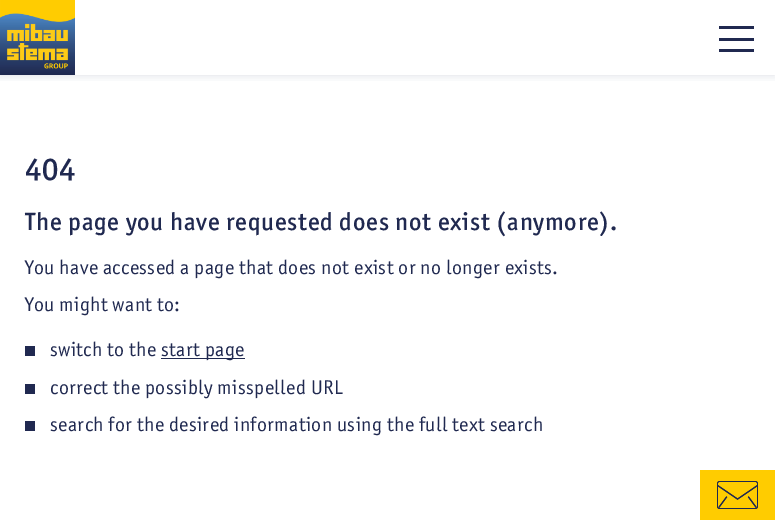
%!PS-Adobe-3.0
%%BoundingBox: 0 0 775 520
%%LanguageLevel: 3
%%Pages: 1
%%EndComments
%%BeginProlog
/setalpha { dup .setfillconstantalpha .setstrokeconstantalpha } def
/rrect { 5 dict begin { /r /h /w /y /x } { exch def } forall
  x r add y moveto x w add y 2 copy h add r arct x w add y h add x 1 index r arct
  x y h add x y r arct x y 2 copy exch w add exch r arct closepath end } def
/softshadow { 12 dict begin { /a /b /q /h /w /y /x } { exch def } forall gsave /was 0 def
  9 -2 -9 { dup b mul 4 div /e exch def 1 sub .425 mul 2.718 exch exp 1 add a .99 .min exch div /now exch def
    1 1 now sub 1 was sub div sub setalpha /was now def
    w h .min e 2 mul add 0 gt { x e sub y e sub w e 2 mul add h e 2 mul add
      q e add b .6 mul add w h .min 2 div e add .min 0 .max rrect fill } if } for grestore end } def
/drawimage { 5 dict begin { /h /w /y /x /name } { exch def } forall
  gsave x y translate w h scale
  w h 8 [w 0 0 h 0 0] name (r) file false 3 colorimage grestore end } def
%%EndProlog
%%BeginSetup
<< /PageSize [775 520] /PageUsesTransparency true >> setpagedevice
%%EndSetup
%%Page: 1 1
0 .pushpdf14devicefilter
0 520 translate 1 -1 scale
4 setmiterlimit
1 setgray
0 0 775 520 rectfill
gsave
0 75 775 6 rectclip
0.125 0.161 0.314 setrgbcolor
0 0 775 75 0 5 0.16 softshadow
grestore
(images/1.raw) 0 0 75 75 drawimage
0.125 0.161 0.314 setrgbcolor
719 38 35 3 rectfill
719 26 35 3 rectfill
719 49 35 3 rectfill
25 346 10 10 rectfill
161 358 84 1 rectfill
25 384 10 10 rectfill
25 421 10 10 rectfill
1 0.8 0 setrgbcolor
700 470 75 50 rectfill
(images/2.raw) 717 481 41 28 drawimage
/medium-Medium [32 0 0 -32 0 0] selectfont
0.125 0.161 0.314 setrgbcolor
25 180 moveto 0.75 0 (404) ashow
/medium-Medium [25 0 0 -25 0 0] selectfont
25 230 moveto 0.75 0 (The page you have requested does not exist \(anymore\).) ashow
/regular-Regular [20 0 0 -20 0 0] selectfont
25 274 moveto 0.4 0 (You have accessed a page that does not exist or no longer exists.) ashow
25 311 moveto 0.4 0 (You might want to:) ashow
50 356 moveto 0.4 0 (switch to the) ashow
161 356 moveto 0.4 0 (start page) ashow
50 394 moveto 0.4 0 (correct the possibly misspelled URL) ashow
50 431 moveto 0.4 0 (search for the desired information using the full text search) ashow
.poppdf14devicefilter showpage
%%EOF
